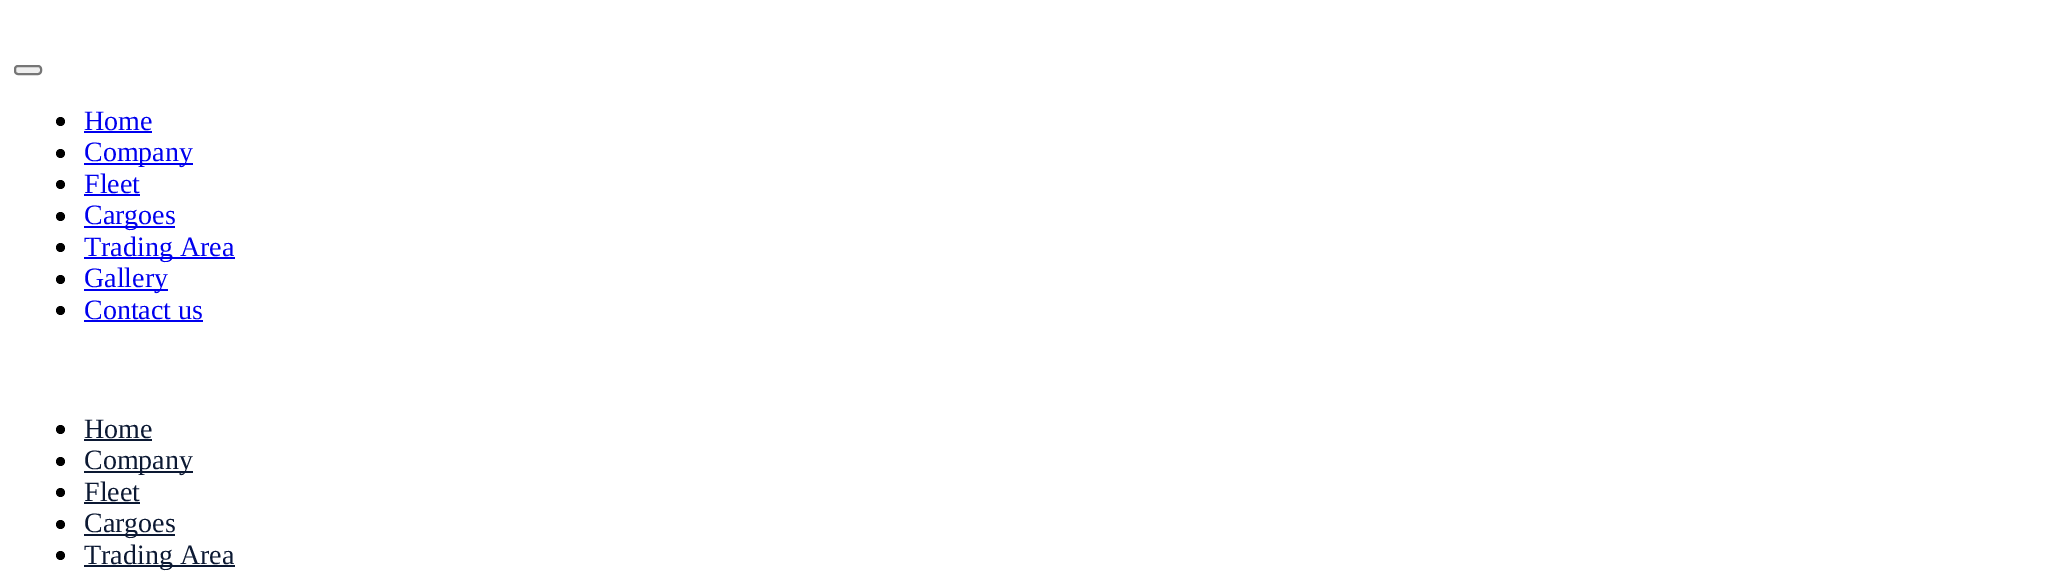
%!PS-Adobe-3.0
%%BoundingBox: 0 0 2054 577
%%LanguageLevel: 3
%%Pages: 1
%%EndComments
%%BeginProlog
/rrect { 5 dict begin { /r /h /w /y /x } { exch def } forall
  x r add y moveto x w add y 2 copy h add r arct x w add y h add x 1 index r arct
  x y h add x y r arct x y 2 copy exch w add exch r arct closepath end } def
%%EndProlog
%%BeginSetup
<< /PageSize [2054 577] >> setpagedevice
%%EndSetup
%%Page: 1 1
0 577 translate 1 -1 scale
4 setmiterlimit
1 setgray
0 0 2054 577 rectfill
0.937 setgray
15 66 26 8 3 rrect gsave fill grestore
0.463 setgray
2 setlinewidth
stroke
0 setgray
newpath 60.5 121.5 4.5 0 360 arc closepath fill
0 0 0.933 setrgbcolor
84 131 68 2 rectfill
0 setgray
newpath 60.5 153.5 4.5 0 360 arc closepath fill
0 0 0.933 setrgbcolor
84 163 109 2 rectfill
0 setgray
newpath 60.5 184.5 4.5 0 360 arc closepath fill
0 0 0.933 setrgbcolor
84 194 56 2 rectfill
0 setgray
newpath 60.5 216.5 4.5 0 360 arc closepath fill
0 0 0.933 setrgbcolor
84 226 91 2 rectfill
0 setgray
newpath 60.5 247.5 4.5 0 360 arc closepath fill
0 0 0.933 setrgbcolor
84 257 151 2 rectfill
0 setgray
newpath 60.5 279.5 4.5 0 360 arc closepath fill
0 0 0.933 setrgbcolor
84 289 84 2 rectfill
0 setgray
newpath 60.5 310.5 4.5 0 360 arc closepath fill
0 0 0.933 setrgbcolor
84 320 119 2 rectfill
0 setgray
newpath 60.5 429.5 4.5 0 360 arc closepath fill
0.047 0.098 0.2 setrgbcolor
84 439 68 2 rectfill
0 setgray
newpath 60.5 461.5 4.5 0 360 arc closepath fill
0.047 0.098 0.2 setrgbcolor
84 471 109 2 rectfill
0 setgray
newpath 60.5 492.5 4.5 0 360 arc closepath fill
0.047 0.098 0.2 setrgbcolor
84 502 56 2 rectfill
0 setgray
newpath 60.5 524.5 4.5 0 360 arc closepath fill
0.047 0.098 0.2 setrgbcolor
84 534 91 2 rectfill
0 setgray
newpath 60.5 555.5 4.5 0 360 arc closepath fill
0.047 0.098 0.2 setrgbcolor
84 565 151 2 rectfill
/LiberationSerif-Regular [28 0 0 -28 0 0] selectfont
0 0 0.933 setrgbcolor
84 130 moveto (Home) show
84 161 moveto (Company) show
84 193 moveto (Fleet) show
84 224 moveto (Cargoes) show
84 256 moveto (Trading Area) show
84 287 moveto (Gallery) show
84 319 moveto (Contact us) show
0.047 0.098 0.2 setrgbcolor
84 438 moveto (Home) show
84 469 moveto (Company) show
84 501 moveto (Fleet) show
84 532 moveto (Cargoes) show
84 564 moveto (Trading Area) show
showpage
%%EOF
